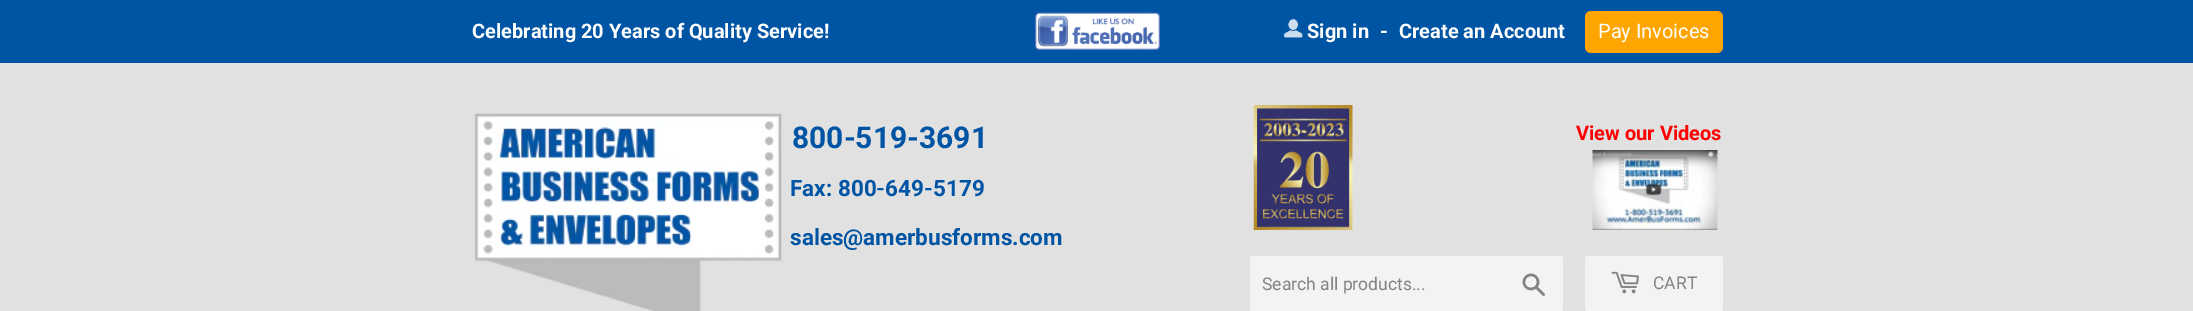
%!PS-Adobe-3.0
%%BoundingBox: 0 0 2193 311
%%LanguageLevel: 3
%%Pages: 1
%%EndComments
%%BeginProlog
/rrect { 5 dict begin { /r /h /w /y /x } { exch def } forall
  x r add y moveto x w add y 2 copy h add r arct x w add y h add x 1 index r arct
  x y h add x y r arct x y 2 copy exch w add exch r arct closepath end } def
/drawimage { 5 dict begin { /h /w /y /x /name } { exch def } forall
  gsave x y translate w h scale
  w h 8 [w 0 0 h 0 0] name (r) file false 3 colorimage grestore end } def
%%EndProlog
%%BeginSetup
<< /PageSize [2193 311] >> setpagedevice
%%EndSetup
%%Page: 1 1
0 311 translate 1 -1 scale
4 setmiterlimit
0 0.329 0.643 setrgbcolor
0 0 2193 311 rectfill
(images/1.raw) 1035 12 125 38 drawimage
(images/2.raw) 1283 18 20 20 drawimage
1 0.647 0 setrgbcolor
1585 11 138 42 6 rrect fill
0.882 setgray
0 63 2193 248 rectfill
(images/3.raw) 475 113 307 198 drawimage
(images/4.raw) 1253 105 100 125 drawimage
(images/5.raw) 1592 150 126 80 drawimage
0.953 setgray
1250 256 313 55 2.5 rrect fill
(images/6.raw) 1522 273 23 23 drawimage
1585 256 138 55 2.5 rrect fill
(images/7.raw) 1611 271 28 23 drawimage
/Roboto-Bold [20 0 0 -20 0 0] selectfont
1 setgray
472 38 moveto (Celebrating 20 Years of Quality Service!) show
1307 38 moveto (Sign in) show
1380 38 moveto (-) show
1399 38 moveto (Create an Account) show
/Roboto-Regular [20 0 0 -20 0 0] selectfont
1598 38 moveto (Pay Invoices) show
/Roboto-Bold [30 0 0 -30 0 0] selectfont
0 0.329 0.643 setrgbcolor
792 148 moveto (800-519-3691) show
/Roboto-Bold [22.5 0 0 -22.5 0 0] selectfont
790 196 moveto (Fax: 800-649-5179) show
790 245 moveto (sales@amerbusforms.com) show
/Roboto-Bold [20 0 0 -20 0 0] selectfont
1 0 0 setrgbcolor
1576 140 moveto (View our Videos) show
/Roboto-Regular [17.5 0 0 -17.5 0 0] selectfont
0.514 setgray
1262 290 moveto (Search all products...) show
1653 289 moveto (CART) show
showpage
%%EOF
